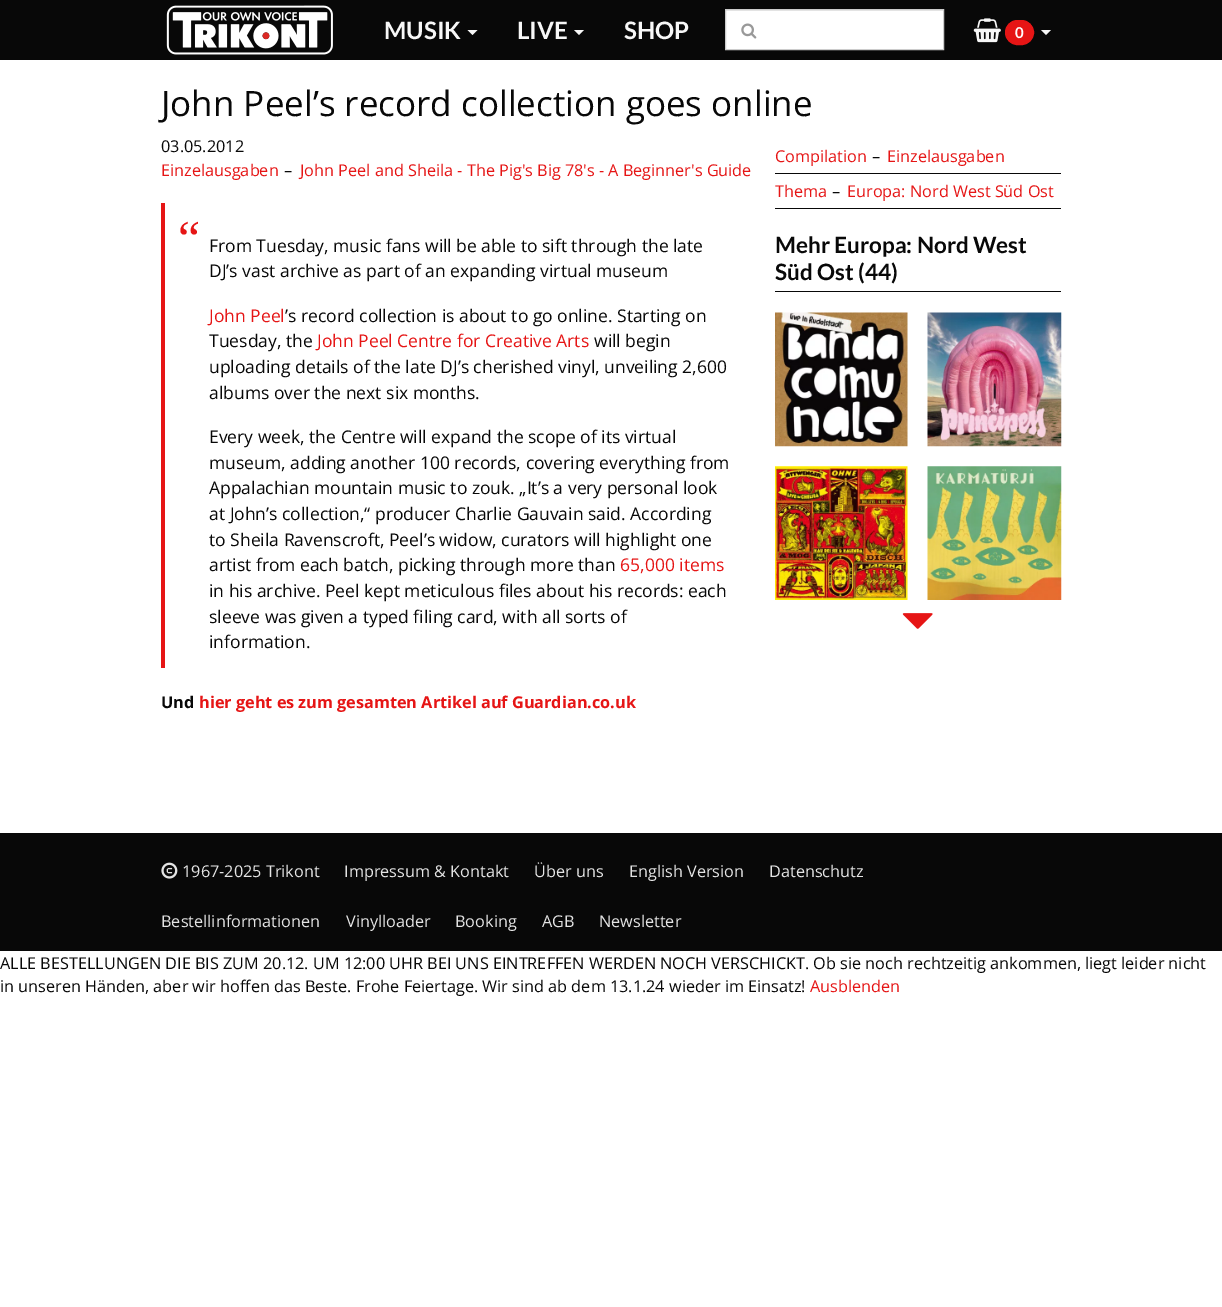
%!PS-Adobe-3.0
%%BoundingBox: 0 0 1222 1307
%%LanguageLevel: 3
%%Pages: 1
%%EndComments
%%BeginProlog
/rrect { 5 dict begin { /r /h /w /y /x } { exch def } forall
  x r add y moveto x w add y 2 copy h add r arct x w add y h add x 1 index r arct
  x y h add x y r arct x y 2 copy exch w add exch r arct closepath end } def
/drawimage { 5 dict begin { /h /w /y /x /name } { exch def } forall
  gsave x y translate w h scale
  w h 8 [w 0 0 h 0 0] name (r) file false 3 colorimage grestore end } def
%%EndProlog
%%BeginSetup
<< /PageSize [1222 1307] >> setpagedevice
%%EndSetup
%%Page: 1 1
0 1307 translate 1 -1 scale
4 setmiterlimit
1 setgray
0 0 1222 1307 rectfill
0.031 setgray
0 0 1222 60 rectfill
(images/1.raw) 166 5 167 50 drawimage
0.969 setgray
newpath 467.5 30 moveto 477.5 30 lineto 472.5 35 lineto closepath fill
newpath 574 30 moveto 584 30 lineto 579 35 lineto closepath fill
1 setgray
726 11 217 38 rectfill
0.925 setgray
726 10 217 1 rectfill
0.8 setgray
725.5 9.5 218 40 rectstroke
(images/2.raw) 741 23 16 16 drawimage
(images/3.raw) 973 18 28 25 drawimage
0.902 0.082 0.082 setrgbcolor
1005.5 20.5 28 24 12 rrect gsave fill grestore
stroke
0.969 setgray
newpath 1041 30 moveto 1051 30 lineto 1046 35 lineto closepath fill
0.902 0.082 0.082 setrgbcolor
161 203 4 465 rectfill
0.031 setgray
775 173 286 1 rectfill
775 208 286 1 rectfill
775 291 286 1 rectfill
(images/4.raw) 775 312 133 135 drawimage
(images/5.raw) 927 312 135 135 drawimage
(images/6.raw) 775 466 133 134 drawimage
(images/7.raw) 927 466 135 134 drawimage
(images/8.raw) 902 613 31 16 drawimage
0 833 1222 118 rectfill
(images/9.raw) 161 862 17 17 drawimage
/Lato-Bold [24 0 0 -24 0 0] selectfont
0.969 setgray
384 39 moveto (MUSIK) show
517 39 moveto (LIVE) show
624 39 moveto (SHOP) show
/Lato-Bold [15 0 0 -15 0 0] selectfont
1 setgray
1015 38 moveto (0) show
/OpenSans-Regular [35 0 0 -35 0 0] selectfont
0.031 setgray
161 116 moveto (John Peel’s record collection goes online) show
/OpenSans-Regular [16.25 0 0 -16.25 0 0] selectfont
161 152 moveto (03.05.2012) show
0.902 0.082 0.082 setrgbcolor
161 176 moveto (Einzelausgaben) show
0.031 setgray
284 176 moveto (–) show
0.902 0.082 0.082 setrgbcolor
300 176 moveto (John Peel and Sheila - The Pig's Big 78's - A Beginner's Guide) show
/LiberationSerif-Regular [50 0 0 -50 0 0] selectfont
178 255 moveto (“) show
/OpenSans-Regular [17.5 0 0 -17.5 0 0] selectfont
0.031 setgray
209 252 moveto (From Tuesday, music fans will be able to sift through the late) show
209 277 moveto (DJ’s vast archive as part of an expanding virtual museum) show
0.902 0.082 0.082 setrgbcolor
209 322 moveto (John Peel) show
0.031 setgray
285 322 moveto (’s record collection is about to go online. Starting on) show
209 347 moveto (Tuesday, the) show
0.902 0.082 0.082 setrgbcolor
317 347 moveto (John Peel Centre for Creative Arts) show
0.031 setgray
594 347 moveto (will begin) show
209 373 moveto (uploading details of the late DJ’s cherished vinyl, unveiling 2,600) show
209 399 moveto (albums over the next six months.) show
209 443 moveto (Every week, the Centre will expand the scope of its virtual) show
209 469 moveto (museum, adding another 100 records, covering everything from) show
209 494 moveto (Appalachian mountain music to zouk. „It’s a very personal look) show
209 520 moveto (at John’s collection,“ producer Charlie Gauvain said. According) show
209 546 moveto (to Sheila Ravenscroft, Peel’s widow, curators will highlight one) show
209 571 moveto (artist from each batch, picking through more than) show
0.902 0.082 0.082 setrgbcolor
620 571 moveto (65,000 items) show
0.031 setgray
209 597 moveto (in his archive. Peel kept meticulous files about his records: each) show
209 623 moveto (sleeve was given a typed filing card, with all sorts of) show
209 648 moveto (information.) show
/OpenSans-Bold [16.25 0 0 -16.25 0 0] selectfont
161 708 moveto (Und) show
0.902 0.082 0.082 setrgbcolor
199 708 moveto (hier geht es zum gesamten Artikel auf Guardian.co.uk) show
/OpenSans-Regular [16.25 0 0 -16.25 0 0] selectfont
775 162 moveto (Compilation) show
0.031 setgray
872 162 moveto (–) show
0.902 0.082 0.082 setrgbcolor
887 162 moveto (Einzelausgaben) show
775 197 moveto (Thema) show
0.031 setgray
832 197 moveto (–) show
0.902 0.082 0.082 setrgbcolor
847 197 moveto (Europa: Nord West Süd Ost) show
/Lato-Bold [22.5 0 0 -22.5 0 0] selectfont
0.031 setgray
775 253 moveto (Mehr Europa: Nord West) show
775 280 moveto (Süd Ost \(44\)) show
/OpenSans-Regular [16.25 0 0 -16.25 0 0] selectfont
0.894 setgray
182 877 moveto (1967-2025 Trikont) show
344 877 moveto (Impressum & Kontakt) show
534 877 moveto (Über uns) show
629 877 moveto (English Version) show
769 877 moveto (Datenschutz) show
161 927 moveto (Bestellinformationen) show
346 927 moveto (Vinylloader) show
455 927 moveto (Booking) show
542 927 moveto (AGB) show
599 927 moveto (Newsletter) show
0.031 setgray
0 969 moveto (ALLE BESTELLUNGEN DIE BIS ZUM 20.12. UM 12:00 UHR BEI UNS EINTREFFEN WERDEN NOCH VERSCHICKT. Ob sie noch rechtzeitig ankommen, liegt leider nicht) show
0 992 moveto (in unseren Händen, aber wir hoffen das Beste. Frohe Feiertage. Wir sind ab dem 13.1.24 wieder im Einsatz!) show
0.902 0.082 0.082 setrgbcolor
810 992 moveto (Ausblenden) show
showpage
%%EOF
